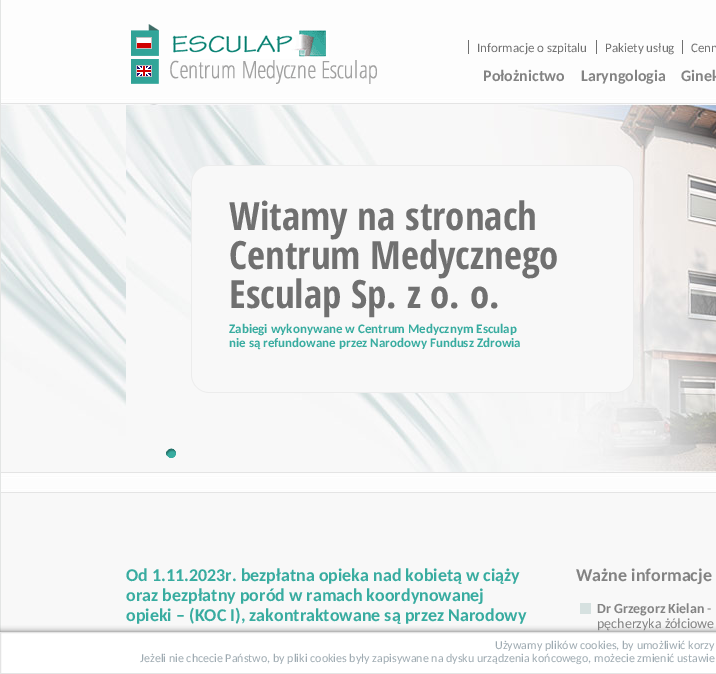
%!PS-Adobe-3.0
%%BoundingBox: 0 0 716 674
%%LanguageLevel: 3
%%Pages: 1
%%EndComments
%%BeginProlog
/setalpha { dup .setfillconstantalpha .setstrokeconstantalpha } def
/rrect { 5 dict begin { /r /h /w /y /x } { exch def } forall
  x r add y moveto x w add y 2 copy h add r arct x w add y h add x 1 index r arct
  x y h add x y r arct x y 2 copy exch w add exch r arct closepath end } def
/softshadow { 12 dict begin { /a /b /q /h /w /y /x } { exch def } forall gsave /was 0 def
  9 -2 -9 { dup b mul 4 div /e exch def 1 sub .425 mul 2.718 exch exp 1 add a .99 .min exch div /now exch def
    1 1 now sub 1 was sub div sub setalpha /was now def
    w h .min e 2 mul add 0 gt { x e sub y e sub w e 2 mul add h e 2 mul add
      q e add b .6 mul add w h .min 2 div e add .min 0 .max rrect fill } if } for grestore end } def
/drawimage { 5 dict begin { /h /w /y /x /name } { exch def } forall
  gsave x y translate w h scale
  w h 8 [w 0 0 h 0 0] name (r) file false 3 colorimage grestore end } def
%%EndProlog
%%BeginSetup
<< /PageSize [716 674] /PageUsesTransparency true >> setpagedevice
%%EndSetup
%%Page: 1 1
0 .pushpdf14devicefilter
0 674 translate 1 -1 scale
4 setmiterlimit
0.973 setgray
0 0 716 674 rectfill
(images/1.raw) 1 0 715 493 drawimage
0.89 0.898 0.894 setrgbcolor
0 0 1 632 rectfill
(images/2.raw) 131 24 28 32 drawimage
(images/3.raw) 170 30 207 54 drawimage
0.439 setgray
468 40 1 14 rectfill
596 40 1 14 rectfill
682 40 1 14 rectfill
(images/4.raw) 126 104 590 368 drawimage
(images/5.raw) 191 165 443 228 drawimage
(images/6.raw) 166 448 10 10 drawimage
(images/7.raw) 131 59 28 25 drawimage
0.839 0.882 0.878 setrgbcolor
580 603 11 11 rectfill
0.4 setgray
-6 632 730 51 0 3 1 softshadow
1 setgray
newpath 0.5 632.5 moveto 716.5 632.5 lineto 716.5 673.5 lineto 0.5 673.5 lineto closepath gsave fill grestore
0.894 setgray
stroke
/Carlito-Regular [13 0 0 -13 0 0] selectfont
0.439 setgray
477 52 moveto (Informacje o szpitalu) show
605 52 moveto (Pakiety usług) show
691 52 moveto (Cenn) show
/Carlito-Bold [16 0 0 -16 0 0] selectfont
0.514 setgray
483 81 moveto (Położnictwo) show
581 81 moveto (Laryngologia) show
681 81 moveto (Ginek) show
/OpenSansCondensed-Bold [39 0 0 -39 0 0] selectfont
0.439 setgray
229 230 moveto (Witamy na stronach) show
229 269 moveto (Centrum Medycznego) show
229 308 moveto (Esculap Sp. z o. o.) show
/Carlito-Bold [13 0 0 -13 0 0] selectfont
0.22 0.675 0.627 setrgbcolor
229 333 moveto (Zabiegi wykonywane w Centrum Medycznym Esculap) show
229 347 moveto (nie są refundowane przez Narodowy Fundusz Zdrowia) show
/Carlito-Bold [18 0 0 -18 0 0] selectfont
126 581 moveto (Od 1.11.2023r. bezpłatna opieka nad kobietą w ciąży) show
126 601 moveto (oraz bezpłatny poród w ramach koordynowanej) show
126 621 moveto (opieki – \(KOC I\), zakontraktowane są przez Narodowy) show
0.514 setgray
576 581 moveto (Ważne informacje) show
/Carlito-Bold [14 0 0 -14 0 0] selectfont
597 613 moveto (Dr Grzegorz Kielan) show
/Carlito-Regular [14 0 0 -14 0 0] selectfont
707 613 moveto (-) show
597 628 moveto (pęcherzyka żółciowe) show
/Carlito-Regular [12 0 0 -12 0 0] selectfont
0.62 0.667 0.694 setrgbcolor
495 649 moveto (Używamy plików cookies, by umożliwić korzy) show
140 662 moveto (Jeżeli nie chcecie Państwo, by pliki cookies były zapisywane na dysku urządzenia końcowego, możecie zmienić ustawie) show
.poppdf14devicefilter showpage
%%EOF
